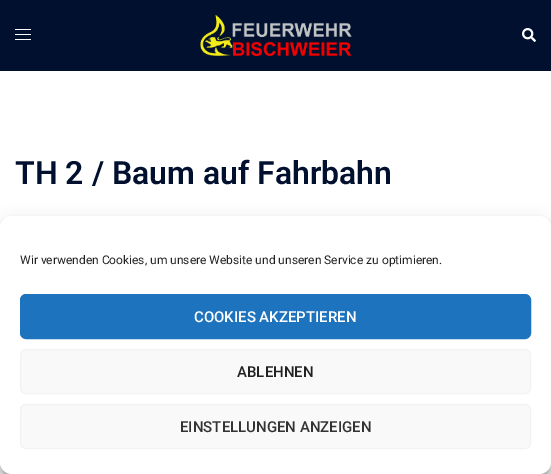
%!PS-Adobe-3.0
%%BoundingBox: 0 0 551 474
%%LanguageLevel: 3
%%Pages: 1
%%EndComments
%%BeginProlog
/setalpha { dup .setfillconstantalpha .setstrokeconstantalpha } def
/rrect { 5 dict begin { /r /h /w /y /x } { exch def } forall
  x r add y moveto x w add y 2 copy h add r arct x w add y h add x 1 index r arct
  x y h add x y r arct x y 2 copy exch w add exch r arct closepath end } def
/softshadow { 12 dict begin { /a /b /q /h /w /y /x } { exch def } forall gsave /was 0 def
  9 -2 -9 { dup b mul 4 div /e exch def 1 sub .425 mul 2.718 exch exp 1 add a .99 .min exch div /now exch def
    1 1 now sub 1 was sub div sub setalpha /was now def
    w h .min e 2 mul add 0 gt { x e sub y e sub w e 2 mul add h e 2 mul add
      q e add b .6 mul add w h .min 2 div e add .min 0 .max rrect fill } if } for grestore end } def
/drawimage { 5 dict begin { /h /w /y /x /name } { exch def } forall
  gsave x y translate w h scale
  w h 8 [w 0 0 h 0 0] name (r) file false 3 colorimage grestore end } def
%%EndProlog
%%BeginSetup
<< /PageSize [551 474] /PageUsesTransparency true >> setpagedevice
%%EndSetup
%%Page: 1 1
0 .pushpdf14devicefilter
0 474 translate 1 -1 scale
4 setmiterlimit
1 setgray
0 0 551 474 rectfill
0 0.063 0.18 setrgbcolor
0 0 551 71 rectfill
1 setgray
15 29 16 1 rectfill
15 34 16 1 rectfill
15 39 16 1 rectfill
(images/1.raw) 200 15 152 41 drawimage
(images/2.raw) 522 28 14 14 drawimage
0 setgray
0 222 551 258 12 3 0.23 softshadow
0 226 551 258 12 10 0.19 softshadow
1 setgray
0 216 551 258 12 rrect fill
0.118 0.451 0.745 setrgbcolor
20.5 294.5 510 44 5.5 rrect gsave fill grestore
stroke
0.976 setgray
20.5 349.5 510 44 5.5 rrect gsave fill grestore
0.949 setgray
stroke
0.976 setgray
20.5 404.5 510 44 5.5 rrect gsave fill grestore
0.949 setgray
stroke
/Roboto-SemiBold [32 0 0 -32 0 0] selectfont
0 0.063 0.18 setrgbcolor
15 184 moveto (TH 2 / Baum auf Fahrbahn) show
/Roboto-Regular [12 0 0 -12 0 0] selectfont
0.133 setgray
20 264 moveto (Wir verwenden Cookies, um unsere Website und unseren Service zu optimieren.) show
/Roboto-Medium [15 0 0 -15 0 0] selectfont
1 setgray
194 322 moveto (COOKIES AKZEPTIEREN) show
0.133 setgray
237 377 moveto (ABLEHNEN) show
0.2 setgray
180 432 moveto (EINSTELLUNGEN ANZEIGEN) show
.poppdf14devicefilter showpage
%%EOF
